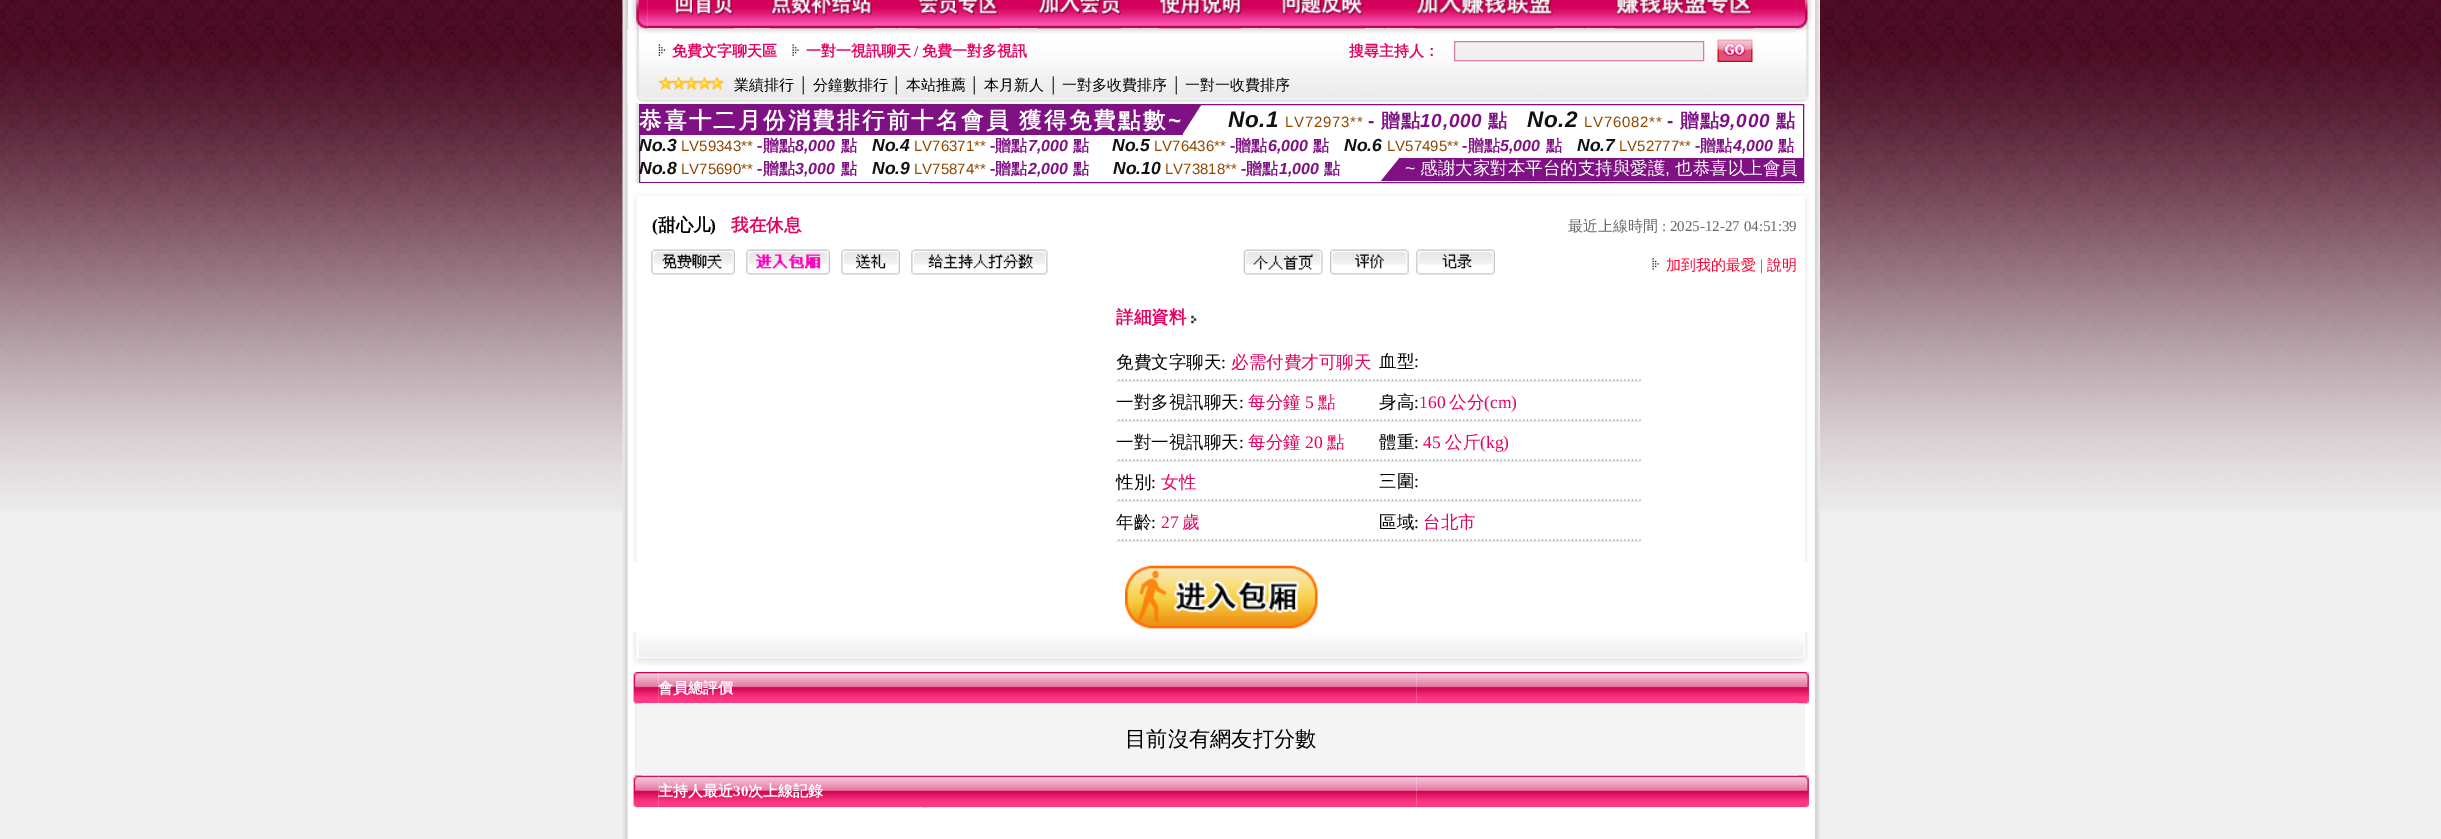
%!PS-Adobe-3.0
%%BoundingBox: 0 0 2441 839
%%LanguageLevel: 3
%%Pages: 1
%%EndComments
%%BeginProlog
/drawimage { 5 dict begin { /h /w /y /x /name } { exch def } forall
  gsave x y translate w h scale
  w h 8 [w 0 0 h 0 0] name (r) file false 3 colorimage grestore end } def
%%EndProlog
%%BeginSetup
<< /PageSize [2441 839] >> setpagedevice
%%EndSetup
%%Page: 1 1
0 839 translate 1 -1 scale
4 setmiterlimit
0.937 setgray
0 0 2441 839 rectfill
(images/1.raw) 0 0 2441 511 drawimage
(images/2.raw) 622 0 1198 839 drawimage
(images/3.raw) 627 0 21 29 drawimage
(images/5.raw) 647 0 1150 29 drawimage
(images/17.raw) 1796 0 19 29 drawimage
(images/19.raw) 627 28 1188 76 drawimage
(images/4.raw) 627 0 21 29 drawimage
(images/6.raw) 672 0 62 29 drawimage
(images/7.raw) 746 28 2 1 drawimage
(images/8.raw) 770 0 104 29 drawimage
(images/7.raw) 896 28 2 1 drawimage
(images/9.raw) 916 0 84 29 drawimage
(images/10.raw) 1018 28 2 1 drawimage
(images/11.raw) 1037 0 85 29 drawimage
(images/12.raw) 1140 28 2 1 drawimage
(images/13.raw) 1158 0 84 29 drawimage
(images/12.raw) 1260 28 2 1 drawimage
(images/14.raw) 1280 0 85 29 drawimage
(images/10.raw) 1383 28 2 1 drawimage
(images/15.raw) 1415 0 139 29 drawimage
(images/10.raw) 1583 28 2 1 drawimage
(images/16.raw) 1615 0 139 29 drawimage
(images/18.raw) 1796 0 19 29 drawimage
(images/20.raw) 658 44 7 12 drawimage
(images/21.raw) 792 44 7 12 drawimage
0.941 setgray
newpath 1454.5 41.5 moveto 1703.5 41.5 lineto 1703.5 60.5 lineto 1454.5 60.5 lineto closepath gsave fill grestore
0.859 0.482 0.643 setrgbcolor
stroke
(images/22.raw) 1717 39 36 23 drawimage
(images/23.raw) 658 77 66 13 drawimage
1 setgray
923 105 6 77 rectfill
0.498 0.067 0.518 setrgbcolor
639.5 104.5 1164 78 rectstroke
640 105 543 30 rectfill
0.494 0.067 0.518 setrgbcolor
newpath 1182.5 105 moveto 1201 105 lineto 1182.5 134 lineto closepath fill
newpath 1400 181 moveto 1381 181 lineto 1400 157.5 lineto closepath fill
0.498 0.067 0.518 setrgbcolor
1400 158 403 23 rectfill
1 setgray
634 183 295 490 rectfill
(images/24.raw) 633 193 1176 8 drawimage
(images/25.raw) 633 201 1176 79 drawimage
(images/26.raw) 651 249 84 26 drawimage
(images/27.raw) 746 249 84 26 drawimage
(images/28.raw) 841 249 59 26 drawimage
(images/29.raw) 911 249 137 26 drawimage
(images/30.raw) 1243 249 80 26 drawimage
(images/31.raw) 1330 249 79 26 drawimage
(images/32.raw) 1416 249 79 26 drawimage
(images/33.raw) 1652 258 7 12 drawimage
(images/34.raw) 633 280 1176 282 drawimage
(images/35.raw) 1191 315 6 9 drawimage
(images/36.raw) 1118 379 261 2 drawimage
0.91 setgray
1116 381 525 1 rectfill
(images/37.raw) 1380 379 261 2 drawimage
(images/36.raw) 1118 419 261 2 drawimage
1116 421 525 1 rectfill
(images/37.raw) 1380 419 261 2 drawimage
(images/36.raw) 1118 459 261 2 drawimage
1116 461 525 1 rectfill
(images/37.raw) 1380 459 261 2 drawimage
(images/36.raw) 1118 499 261 2 drawimage
1116 501 525 1 rectfill
(images/37.raw) 1380 499 261 2 drawimage
(images/36.raw) 1118 539 261 2 drawimage
1116 541 525 1 rectfill
(images/37.raw) 1380 539 261 2 drawimage
(images/38.raw) 1125 565 193 64 drawimage
(images/39.raw) 632 632 1177 34 drawimage
(images/40.raw) 633 672 26 32 drawimage
(images/42.raw) 658 672 759 31 drawimage
(images/43.raw) 1416 672 393 32 drawimage
0.957 setgray
637 703 1168 73 rectfill
(images/41.raw) 633 672 9 32 drawimage
(images/44.raw) 1798 672 11 32 drawimage
(images/45.raw) 633 775 26 32 drawimage
(images/46.raw) 633 775 9 32 drawimage
(images/47.raw) 658 775 759 32 drawimage
(images/48.raw) 1416 775 393 32 drawimage
(images/49.raw) 1798 775 11 32 drawimage
1 setgray
634 808 1181 31 rectfill
/WenQuanYiZenHei-Bold [15 0 0 -15 0 0] selectfont
0.902 0.004 0.388 setrgbcolor
672 56 moveto (免費文字聊天區) show
806 56 moveto (一對一視訊聊天) show
/LiberationSerif-Bold [15 0 0 -15 0 0] selectfont
914 56 moveto (/) show
/WenQuanYiZenHei-Bold [15 0 0 -15 0 0] selectfont
922 56 moveto (免費一對多視訊) show
1349 56 moveto (搜尋主持人：) show
/WenQuanYiZenHei-Medium [15 0 0 -15 0 0] selectfont
0 setgray
734 90 moveto (業績排行) show
/LiberationSerif-Regular [15 0 0 -15 0 0] selectfont
798 90 moveto (│) show
/WenQuanYiZenHei-Medium [15 0 0 -15 0 0] selectfont
813 90 moveto (分鐘數排行) show
/LiberationSerif-Regular [15 0 0 -15 0 0] selectfont
891 90 moveto (│) show
/WenQuanYiZenHei-Medium [15 0 0 -15 0 0] selectfont
906 90 moveto (本站推薦) show
/LiberationSerif-Regular [15 0 0 -15 0 0] selectfont
969 90 moveto (│) show
/WenQuanYiZenHei-Medium [15 0 0 -15 0 0] selectfont
984 90 moveto (本月新人) show
/LiberationSerif-Regular [15 0 0 -15 0 0] selectfont
1048 90 moveto (│) show
/WenQuanYiZenHei-Medium [15 0 0 -15 0 0] selectfont
1062 90 moveto (一對多收費排序) show
/LiberationSerif-Regular [15 0 0 -15 0 0] selectfont
1171 90 moveto (│) show
/WenQuanYiZenHei-Medium [15 0 0 -15 0 0] selectfont
1185 90 moveto (一對一收費排序) show
/WenQuanYiZenHei-Bold [22.5 0 0 -22.5 0 0] selectfont
1 setgray
639 128 moveto 2.25 0 (恭喜十二月份消費排行前十名會員 獲得免費點數) ashow
/LiberationSans-Bold [22.5 0 0 -22.5 0 0] selectfont
1168 128 moveto 2.25 0 (~) ashow
/LiberationSans-BoldItalic [22.5 0 0 -22.5 0 0] selectfont
0.067 setgray
1228 127 moveto 0.75 0 (No.1) ashow
/LiberationSans-Regular [15 0 0 -15 0 0] selectfont
0.549 0.275 0 setrgbcolor
1285 127 moveto 0.75 0 (LV72973**) ashow
/LiberationSans-Bold [19 0 0 -19 0 0] selectfont
0.498 0.067 0.518 setrgbcolor
1368 127 moveto 0.75 0 (-) ashow
/WenQuanYiZenHei-Bold [19 0 0 -19 0 0] selectfont
1381 127 moveto 0.75 0 (贈點) ashow
/LiberationSans-BoldItalic [19 0 0 -19 0 0] selectfont
1420 127 moveto 0.75 0 (10,000) ashow
/WenQuanYiZenHei-Bold [19 0 0 -19 0 0] selectfont
1488 127 moveto 0.75 0 (點) ashow
/LiberationSans-BoldItalic [22.5 0 0 -22.5 0 0] selectfont
0.067 setgray
1527 127 moveto 0.75 0 (No.2) ashow
/LiberationSans-Regular [15 0 0 -15 0 0] selectfont
0.549 0.275 0 setrgbcolor
1584 127 moveto 0.75 0 (LV76082**) ashow
/LiberationSans-Bold [19 0 0 -19 0 0] selectfont
0.498 0.067 0.518 setrgbcolor
1667 127 moveto 0.75 0 (-) ashow
/WenQuanYiZenHei-Bold [19 0 0 -19 0 0] selectfont
1680 127 moveto 0.75 0 (贈點) ashow
/LiberationSans-BoldItalic [19 0 0 -19 0 0] selectfont
1719 127 moveto 0.75 0 (9,000) ashow
/WenQuanYiZenHei-Bold [19 0 0 -19 0 0] selectfont
1776 127 moveto 0.75 0 (點) ashow
/LiberationSans-BoldItalic [17.5 0 0 -17.5 0 0] selectfont
0.067 setgray
639 151 moveto (No.3) show
/LiberationSans-Regular [15 0 0 -15 0 0] selectfont
0.549 0.275 0 setrgbcolor
681 151 moveto (LV59343**) show
/LiberationSans-Bold [16 0 0 -16 0 0] selectfont
0.498 0.067 0.518 setrgbcolor
757 151 moveto (-) show
/WenQuanYiZenHei-Bold [16 0 0 -16 0 0] selectfont
763 151 moveto (贈點) show
/LiberationSans-BoldItalic [16 0 0 -16 0 0] selectfont
795 151 moveto (8,000) show
/WenQuanYiZenHei-Bold [16 0 0 -16 0 0] selectfont
841 151 moveto (點) show
/LiberationSans-BoldItalic [17.5 0 0 -17.5 0 0] selectfont
0.067 setgray
872 151 moveto (No.4) show
/LiberationSans-Regular [15 0 0 -15 0 0] selectfont
0.549 0.275 0 setrgbcolor
914 151 moveto (LV76371**) show
/LiberationSans-Bold [16 0 0 -16 0 0] selectfont
0.498 0.067 0.518 setrgbcolor
990 151 moveto (-) show
/WenQuanYiZenHei-Bold [16 0 0 -16 0 0] selectfont
995 151 moveto (贈點) show
/LiberationSans-BoldItalic [16 0 0 -16 0 0] selectfont
1028 151 moveto (7,000) show
/WenQuanYiZenHei-Bold [16 0 0 -16 0 0] selectfont
1073 151 moveto (點) show
/LiberationSans-BoldItalic [17.5 0 0 -17.5 0 0] selectfont
0.067 setgray
1112 151 moveto (No.5) show
/LiberationSans-Regular [15 0 0 -15 0 0] selectfont
0.549 0.275 0 setrgbcolor
1154 151 moveto (LV76436**) show
/LiberationSans-Bold [16 0 0 -16 0 0] selectfont
0.498 0.067 0.518 setrgbcolor
1230 151 moveto (-) show
/WenQuanYiZenHei-Bold [16 0 0 -16 0 0] selectfont
1235 151 moveto (贈點) show
/LiberationSans-BoldItalic [16 0 0 -16 0 0] selectfont
1268 151 moveto (6,000) show
/WenQuanYiZenHei-Bold [16 0 0 -16 0 0] selectfont
1313 151 moveto (點) show
/LiberationSans-BoldItalic [17.5 0 0 -17.5 0 0] selectfont
0.067 setgray
1344 151 moveto (No.6) show
/LiberationSans-Regular [15 0 0 -15 0 0] selectfont
0.549 0.275 0 setrgbcolor
1387 151 moveto (LV57495**) show
/LiberationSans-Bold [16 0 0 -16 0 0] selectfont
0.498 0.067 0.518 setrgbcolor
1462 151 moveto (-) show
/WenQuanYiZenHei-Bold [16 0 0 -16 0 0] selectfont
1468 151 moveto (贈點) show
/LiberationSans-BoldItalic [16 0 0 -16 0 0] selectfont
1500 151 moveto (5,000) show
/WenQuanYiZenHei-Bold [16 0 0 -16 0 0] selectfont
1546 151 moveto (點) show
/LiberationSans-BoldItalic [17.5 0 0 -17.5 0 0] selectfont
0.067 setgray
1577 151 moveto (No.7) show
/LiberationSans-Regular [15 0 0 -15 0 0] selectfont
0.549 0.275 0 setrgbcolor
1619 151 moveto (LV52777**) show
/LiberationSans-Bold [16 0 0 -16 0 0] selectfont
0.498 0.067 0.518 setrgbcolor
1695 151 moveto (-) show
/WenQuanYiZenHei-Bold [16 0 0 -16 0 0] selectfont
1700 151 moveto (贈點) show
/LiberationSans-BoldItalic [16 0 0 -16 0 0] selectfont
1733 151 moveto (4,000) show
/WenQuanYiZenHei-Bold [16 0 0 -16 0 0] selectfont
1778 151 moveto (點) show
/LiberationSans-BoldItalic [17.5 0 0 -17.5 0 0] selectfont
0.067 setgray
639 174 moveto (No.8) show
/LiberationSans-Regular [15 0 0 -15 0 0] selectfont
0.549 0.275 0 setrgbcolor
681 174 moveto (LV75690**) show
/LiberationSans-Bold [16 0 0 -16 0 0] selectfont
0.498 0.067 0.518 setrgbcolor
757 174 moveto (-) show
/WenQuanYiZenHei-Bold [16 0 0 -16 0 0] selectfont
763 174 moveto (贈點) show
/LiberationSans-BoldItalic [16 0 0 -16 0 0] selectfont
795 174 moveto (3,000) show
/WenQuanYiZenHei-Bold [16 0 0 -16 0 0] selectfont
841 174 moveto (點) show
/LiberationSans-BoldItalic [17.5 0 0 -17.5 0 0] selectfont
0.067 setgray
872 174 moveto (No.9) show
/LiberationSans-Regular [15 0 0 -15 0 0] selectfont
0.549 0.275 0 setrgbcolor
914 174 moveto (LV75874**) show
/LiberationSans-Bold [16 0 0 -16 0 0] selectfont
0.498 0.067 0.518 setrgbcolor
990 174 moveto (-) show
/WenQuanYiZenHei-Bold [16 0 0 -16 0 0] selectfont
995 174 moveto (贈點) show
/LiberationSans-BoldItalic [16 0 0 -16 0 0] selectfont
1028 174 moveto (2,000) show
/WenQuanYiZenHei-Bold [16 0 0 -16 0 0] selectfont
1073 174 moveto (點) show
/LiberationSans-BoldItalic [17.5 0 0 -17.5 0 0] selectfont
0.067 setgray
1113 174 moveto (No.10) show
/LiberationSans-Regular [15 0 0 -15 0 0] selectfont
0.549 0.275 0 setrgbcolor
1165 174 moveto (LV73818**) show
/LiberationSans-Bold [16 0 0 -16 0 0] selectfont
0.498 0.067 0.518 setrgbcolor
1241 174 moveto (-) show
/WenQuanYiZenHei-Bold [16 0 0 -16 0 0] selectfont
1246 174 moveto (贈點) show
/LiberationSans-BoldItalic [16 0 0 -16 0 0] selectfont
1279 174 moveto (1,000) show
/WenQuanYiZenHei-Bold [16 0 0 -16 0 0] selectfont
1324 174 moveto (點) show
/LiberationSans-Regular [17.5 0 0 -17.5 0 0] selectfont
1 setgray
1405 174 moveto (~) show
/WenQuanYiZenHei-Medium [17.5 0 0 -17.5 0 0] selectfont
1420 174 moveto (感謝大家對本平台的支持與愛護) show
1675 174 moveto (也恭喜以上會員) show
/LiberationSans-Regular [17.5 0 0 -17.5 0 0] selectfont
1665 174 moveto (,) show
/LiberationSerif-Bold [17.5 0 0 -17.5 0 0] selectfont
0 setgray
652 231 moveto (\() show
/WenQuanYiZenHei-Bold [17.5 0 0 -17.5 0 0] selectfont
658 231 moveto (甜心儿) show
/LiberationSerif-Bold [17.5 0 0 -17.5 0 0] selectfont
710 231 moveto (\)) show
/WenQuanYiZenHei-Bold [17.5 0 0 -17.5 0 0] selectfont
0.902 0.004 0.388 setrgbcolor
731 231 moveto (我在休息) show
/WenQuanYiZenHei-Medium [15 0 0 -15 0 0] selectfont
0.4 setgray
1568 231 moveto (最近上線時間) show
/LiberationSerif-Regular [15 0 0 -15 0 0] selectfont
1662 231 moveto (: 2025-12-27 04:51:39) show
/WenQuanYiZenHei-Medium [15 0 0 -15 0 0] selectfont
1 0 0.2 setrgbcolor
1666 270 moveto (加到我的最愛) show
/LiberationSerif-Regular [15 0 0 -15 0 0] selectfont
1760 270 moveto (|) show
/WenQuanYiZenHei-Medium [15 0 0 -15 0 0] selectfont
1767 270 moveto (說明) show
/WenQuanYiZenHei-Bold [17.5 0 0 -17.5 0 0] selectfont
0.902 0.004 0.388 setrgbcolor
1116 323 moveto (詳細資料) show
/WenQuanYiZenHei-Medium [17.5 0 0 -17.5 0 0] selectfont
0 setgray
1116 368 moveto (免費文字聊天) show
/LiberationSerif-Regular [17.5 0 0 -17.5 0 0] selectfont
1221 368 moveto (:) show
/WenQuanYiZenHei-Medium [17.5 0 0 -17.5 0 0] selectfont
0.902 0.004 0.388 setrgbcolor
1231 368 moveto (必需付費才可聊天) show
0 setgray
1379 367 moveto (血型) show
/LiberationSerif-Regular [17.5 0 0 -17.5 0 0] selectfont
1414 367 moveto (:) show
/WenQuanYiZenHei-Medium [17.5 0 0 -17.5 0 0] selectfont
1116 408 moveto (一對多視訊聊天) show
/LiberationSerif-Regular [17.5 0 0 -17.5 0 0] selectfont
1239 408 moveto (:) show
/WenQuanYiZenHei-Medium [17.5 0 0 -17.5 0 0] selectfont
0.902 0.004 0.388 setrgbcolor
1248 408 moveto (每分鐘) show
/LiberationSerif-Regular [17.5 0 0 -17.5 0 0] selectfont
1305 408 moveto (5) show
/WenQuanYiZenHei-Medium [17.5 0 0 -17.5 0 0] selectfont
1318 408 moveto (點) show
0 setgray
1379 408 moveto (身高) show
/LiberationSerif-Regular [17.5 0 0 -17.5 0 0] selectfont
1414 408 moveto (:) show
0.902 0.004 0.388 setrgbcolor
1419 408 moveto (160) show
/WenQuanYiZenHei-Medium [17.5 0 0 -17.5 0 0] selectfont
1449 408 moveto (公分) show
/LiberationSerif-Regular [17.5 0 0 -17.5 0 0] selectfont
1484 408 moveto (\(cm\)) show
/WenQuanYiZenHei-Medium [17.5 0 0 -17.5 0 0] selectfont
0 setgray
1116 448 moveto (一對一視訊聊天) show
/LiberationSerif-Regular [17.5 0 0 -17.5 0 0] selectfont
1239 448 moveto (:) show
/WenQuanYiZenHei-Medium [17.5 0 0 -17.5 0 0] selectfont
0.902 0.004 0.388 setrgbcolor
1248 448 moveto (每分鐘) show
/LiberationSerif-Regular [17.5 0 0 -17.5 0 0] selectfont
1305 448 moveto (20) show
/WenQuanYiZenHei-Medium [17.5 0 0 -17.5 0 0] selectfont
1327 448 moveto (點) show
0 setgray
1379 448 moveto (體重) show
/LiberationSerif-Regular [17.5 0 0 -17.5 0 0] selectfont
1414 448 moveto (:) show
0.902 0.004 0.388 setrgbcolor
1423 448 moveto (45) show
/WenQuanYiZenHei-Medium [17.5 0 0 -17.5 0 0] selectfont
1445 448 moveto (公斤) show
/LiberationSerif-Regular [17.5 0 0 -17.5 0 0] selectfont
1480 448 moveto (\(kg\)) show
/WenQuanYiZenHei-Medium [17.5 0 0 -17.5 0 0] selectfont
0 setgray
1116 488 moveto (性別) show
/LiberationSerif-Regular [17.5 0 0 -17.5 0 0] selectfont
1151 488 moveto (:) show
/WenQuanYiZenHei-Medium [17.5 0 0 -17.5 0 0] selectfont
0.902 0.004 0.388 setrgbcolor
1161 488 moveto (女性) show
0 setgray
1379 487 moveto (三圍) show
/LiberationSerif-Regular [17.5 0 0 -17.5 0 0] selectfont
1414 487 moveto (:) show
/WenQuanYiZenHei-Medium [17.5 0 0 -17.5 0 0] selectfont
1116 528 moveto (年齡) show
/LiberationSerif-Regular [17.5 0 0 -17.5 0 0] selectfont
1151 528 moveto (:) show
0.902 0.004 0.388 setrgbcolor
1161 528 moveto (27) show
/WenQuanYiZenHei-Medium [17.5 0 0 -17.5 0 0] selectfont
1182 528 moveto (歲) show
0 setgray
1379 528 moveto (區域) show
/LiberationSerif-Regular [17.5 0 0 -17.5 0 0] selectfont
1414 528 moveto (:) show
/WenQuanYiZenHei-Medium [17.5 0 0 -17.5 0 0] selectfont
0.902 0.004 0.388 setrgbcolor
1423 528 moveto (台北市) show
/WenQuanYiZenHei-Bold [15 0 0 -15 0 0] selectfont
1 setgray
658 693 moveto (會員總評價) show
/WenQuanYiZenHei-Medium [21.25 0 0 -21.25 0 0] selectfont
0 setgray
1125 746 moveto (目前沒有網友打分數) show
/WenQuanYiZenHei-Bold [15 0 0 -15 0 0] selectfont
1 setgray
658 796 moveto (主持人最近) show
/LiberationSerif-Bold [15 0 0 -15 0 0] selectfont
733 796 moveto (30) show
/WenQuanYiZenHei-Bold [15 0 0 -15 0 0] selectfont
748 796 moveto (次上線記錄) show
showpage
%%EOF
